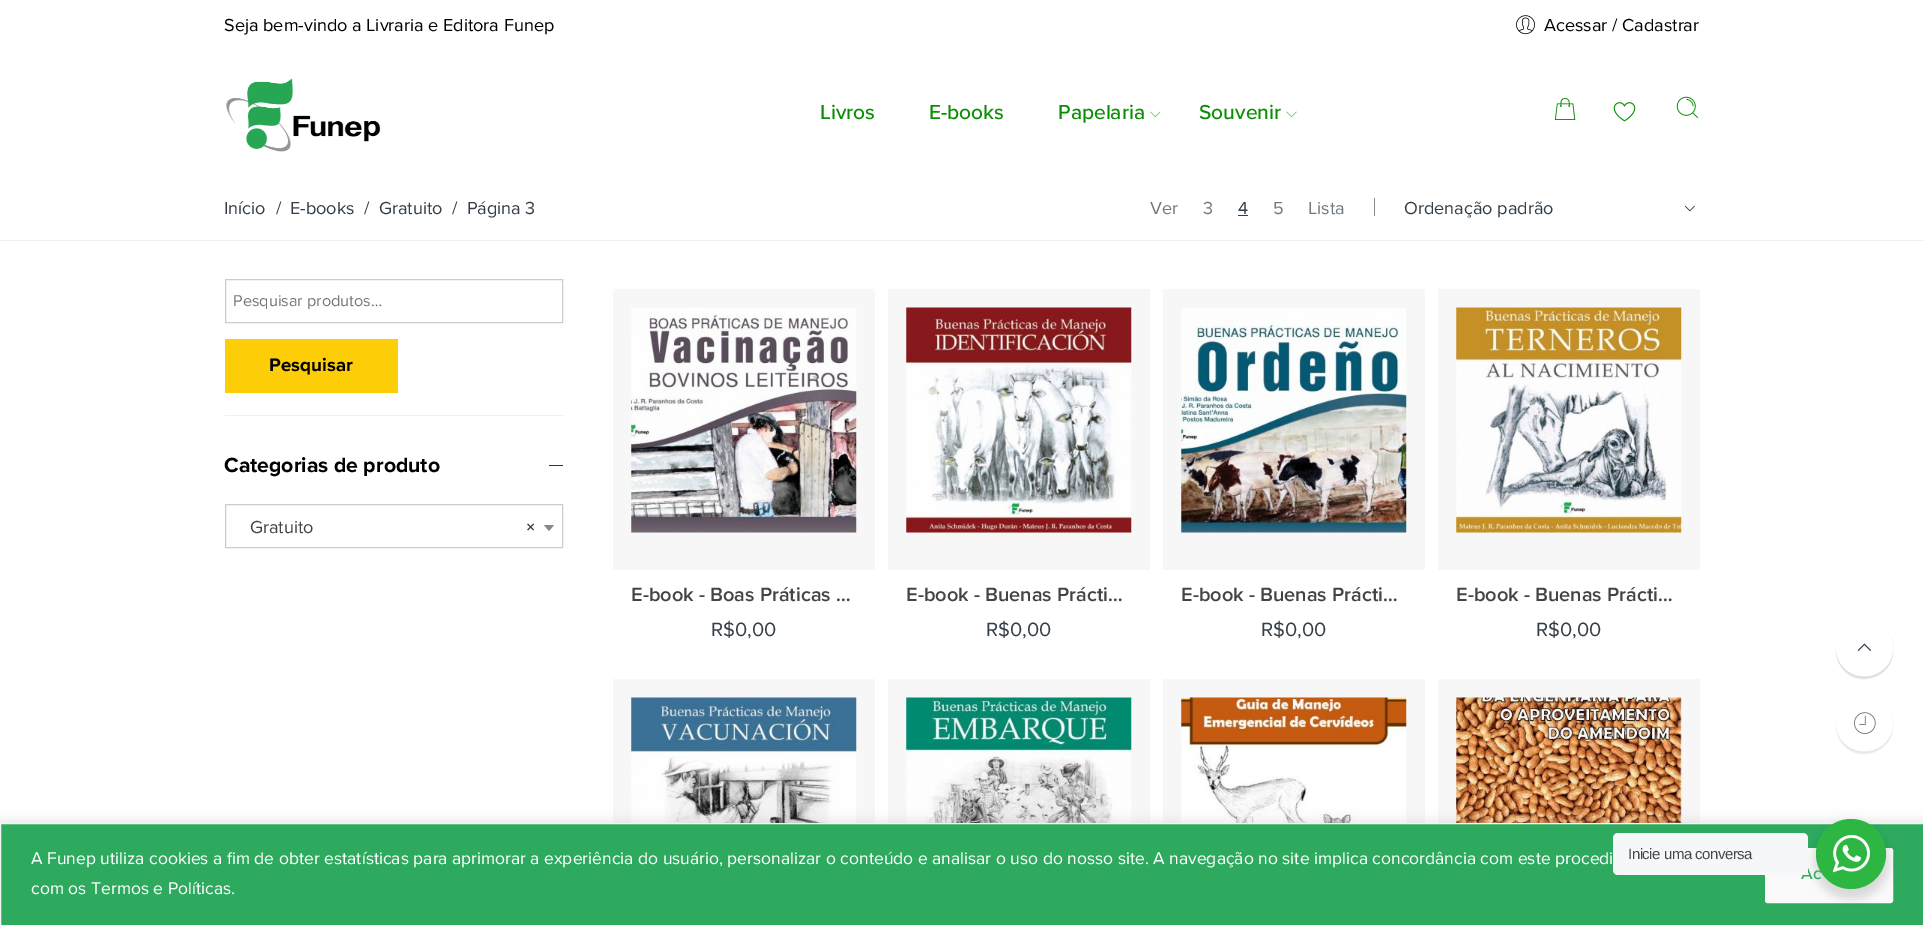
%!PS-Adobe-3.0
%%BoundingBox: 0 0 1923 926
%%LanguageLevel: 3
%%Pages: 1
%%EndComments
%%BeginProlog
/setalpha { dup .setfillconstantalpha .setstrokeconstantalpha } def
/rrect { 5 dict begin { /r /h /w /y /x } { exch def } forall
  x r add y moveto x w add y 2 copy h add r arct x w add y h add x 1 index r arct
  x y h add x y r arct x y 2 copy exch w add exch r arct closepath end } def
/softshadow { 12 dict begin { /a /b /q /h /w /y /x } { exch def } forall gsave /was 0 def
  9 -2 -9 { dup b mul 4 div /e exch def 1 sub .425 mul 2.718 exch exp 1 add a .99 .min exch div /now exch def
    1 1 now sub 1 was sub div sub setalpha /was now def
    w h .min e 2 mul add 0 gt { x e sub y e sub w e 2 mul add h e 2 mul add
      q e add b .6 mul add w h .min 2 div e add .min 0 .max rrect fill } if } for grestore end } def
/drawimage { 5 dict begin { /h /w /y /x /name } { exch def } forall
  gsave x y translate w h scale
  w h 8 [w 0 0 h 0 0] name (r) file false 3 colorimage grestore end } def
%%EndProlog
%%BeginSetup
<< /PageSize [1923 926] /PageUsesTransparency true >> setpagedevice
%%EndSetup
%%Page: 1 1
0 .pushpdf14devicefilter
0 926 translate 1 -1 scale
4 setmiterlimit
1 setgray
0 0 1923 926 rectfill
(images/1.raw) 1516 15 19 20 drawimage
(images/2.raw) 226 78 155 74 drawimage
(images/3.raw) 1150 111 11 7 drawimage
(images/4.raw) 1286 111 11 7 drawimage
(images/5.raw) 1554 98 22 22 drawimage
(images/6.raw) 1613 102 23 20 drawimage
(images/7.raw) 1676 96 23 23 drawimage
0.937 setgray
0 240 1923 1 rectfill
0.2 0.243 0.282 setrgbcolor
1238 215 10 1 rectfill
0.533 setgray
1374 198 1 18 rectfill
(images/8.raw) 1684 205 11 7 drawimage
0.937 setgray
225 415 338 1 rectfill
0.8 setgray
225.5 279.5 337 43 rectstroke
0.992 0.808 0.027 setrgbcolor
225 339 173 54 rectfill
0.2 setgray
549 465 14 1 rectfill
0.8 setgray
225.5 504.5 337 43 rectstroke
0.533 setgray
newpath 544 525 moveto 554 525 lineto 549 531 lineto closepath fill
0.969 setgray
613 289 262 281 rectfill
(images/9.raw) 631 307 226 226 drawimage
888 289 262 281 rectfill
(images/10.raw) 906 307 226 226 drawimage
1163 289 262 281 rectfill
(images/11.raw) 1181 308 226 225 drawimage
1438 289 262 281 rectfill
(images/12.raw) 1456 307 226 226 drawimage
613 679 262 144 rectfill
(images/13.raw) 631 697 226 126 drawimage
888 679 262 144 rectfill
(images/14.raw) 906 697 226 126 drawimage
1163 679 262 144 rectfill
(images/15.raw) 1181 697 226 126 drawimage
1438 679 262 144 rectfill
(images/16.raw) 1456 697 226 126 drawimage
0.973 setgray
0.6 setlinewidth
newpath 1865 724 28.7 0 360 arc closepath stroke
0.07 setalpha
0 setgray
newpath 1836 722 moveto 1835 729 1837 736 1841 742 curveto 1858 767 1899 750 1892 720 curveto 1896 749 1857 763 1841 739 curveto 1838 734 1836 728 1836 722 curveto closepath fill
1 setalpha
1 setgray
1836 695 57 56 28 rrect fill
(images/17.raw) 1854 712 22 22 drawimage
0.961 setgray
newpath 1865 649 28.7 0 360 arc closepath stroke
0.1 setalpha
0 setgray
newpath 1836 647 moveto 1835 654 1837 661 1841 667 curveto 1858 692 1899 675 1892 645 curveto 1896 674 1857 688 1841 664 curveto 1838 659 1836 653 1836 647 curveto closepath fill
1 setalpha
1 setgray
1836 620 57 56 28 rrect fill
(images/18.raw) 1857 643 15 8 drawimage
0.675 0.671 0.671 setrgbcolor
0 821 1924 104 0 6 0.3 softshadow
0.18 0.667 0.373 setrgbcolor
newpath 0.5 823.5 moveto 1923.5 823.5 lineto 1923.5 925.5 lineto 0.5 925.5 lineto closepath gsave fill grestore
0.957 setgray
1 setlinewidth
stroke
0.98 setgray
1766.5 849.5 125 52 1 rrect gsave fill grestore
3 setlinewidth
stroke
0 setgray
1814 824 75 75 37.5 5 0.14 softshadow
/ProximaNova-Regular [18.1 0 0 -18.1 0 0] selectfont
224 31 moveto (Seja bem-vindo a Livraria e Editora Funep) show
1544 31 moveto (Acessar / Cadastrar) show
/ProximaNova-Medium [21 0 0 -21 0 0] selectfont
0.043 0.557 0.016 setrgbcolor
820 119 moveto (Livros) show
929 119 moveto (E-books) show
1058 119 moveto (Papelaria) show
1199 119 moveto (Souvenir) show
/ProximaNova-Regular [18.1 0 0 -18.1 0 0] selectfont
0.2 0.243 0.282 setrgbcolor
224 214 moveto (Início) show
276 214 moveto (/) show
290 214 moveto (E-books) show
364 214 moveto (/) show
379 214 moveto (Gratuito) show
452 214 moveto (/  Página 3) show
0.439 0.471 0.498 setrgbcolor
1150 214 moveto (Ver) show
1203 214 moveto (3) show
0.2 0.243 0.282 setrgbcolor
1238 214 moveto (4) show
0.439 0.471 0.498 setrgbcolor
1273 214 moveto (5) show
1308 214 moveto (Lista) show
0.2 0.243 0.282 setrgbcolor
1404 214 moveto (Ordenação padrão) show
/ProximaNova-Regular [16.25 0 0 -16.25 0 0] selectfont
0.459 setgray
233 306 moveto (Pesquisar produtos…) show
/ProximaNova-Bold [18.75 0 0 -18.75 0 0] selectfont
0 setgray
269 371 moveto (Pesquisar) show
/ProximaNova-Bold [21.25 0 0 -21.25 0 0] selectfont
224 472 moveto (Categorias de produto) show
/ProximaNova-Regular [18.1 0 0 -18.1 0 0] selectfont
0.267 setgray
250 533 moveto (Gratuito) show
/ProximaNova-Bold [18.1 0 0 -18.1 0 0] selectfont
526 533 moveto (×) show
/ProximaNova-SemiBold [20 0 0 -20 0 0] selectfont
631 601 moveto (E-book - Boas Práticas …) show
/ProximaNova-Regular [20 0 0 -20 0 0] selectfont
0.2 0.243 0.282 setrgbcolor
711 636 moveto (R$0,00) show
/ProximaNova-SemiBold [20 0 0 -20 0 0] selectfont
0.267 setgray
906 601 moveto (E-book - Buenas Prácti…) show
/ProximaNova-Regular [20 0 0 -20 0 0] selectfont
0.2 0.243 0.282 setrgbcolor
986 636 moveto (R$0,00) show
/ProximaNova-SemiBold [20 0 0 -20 0 0] selectfont
0.267 setgray
1181 601 moveto (E-book - Buenas Prácti…) show
/ProximaNova-Regular [20 0 0 -20 0 0] selectfont
0.2 0.243 0.282 setrgbcolor
1261 636 moveto (R$0,00) show
/ProximaNova-SemiBold [20 0 0 -20 0 0] selectfont
0.267 setgray
1456 601 moveto (E-book - Buenas Prácti…) show
/ProximaNova-Regular [20 0 0 -20 0 0] selectfont
0.2 0.243 0.282 setrgbcolor
1536 636 moveto (R$0,00) show
/ProximaNova-Medium [18.1 0 0 -18.1 0 0] selectfont
0.745 0.729 0.749 setrgbcolor
812 387 moveto (*) show
/ProximaNova-Regular [17.5 0 0 -17.5 0 0] selectfont
1 setgray
31 864 moveto (A Funep utiliza cookies a fim de obter estatísticas para aprimorar a experiência do usuário, personalizar o conteúdo e analisar o uso do nosso site. A navegação no site implica concordância com este procedi) show
31 894 moveto (com os Termos e Políticas.) show
/ProximaNova-Medium [17.5 0 0 -17.5 0 0] selectfont
0.18 0.667 0.373 setrgbcolor
1801 879 moveto (Ac) show
0.176 0.718 0.259 setrgbcolor
newpath 1851 854 35 0 360 arc closepath fill
(images/19.raw) 1833 835 37 38 drawimage
0.961 0.969 0.976 setrgbcolor
1613 833 195 42 5 rrect fill
/LiberationSans-Regular [15 0 0 -15 0 0] selectfont
0.263 0.278 0.306 setrgbcolor
1628 859 moveto -0.5 0 (Inicie uma conversa) ashow
.poppdf14devicefilter showpage
%%EOF
